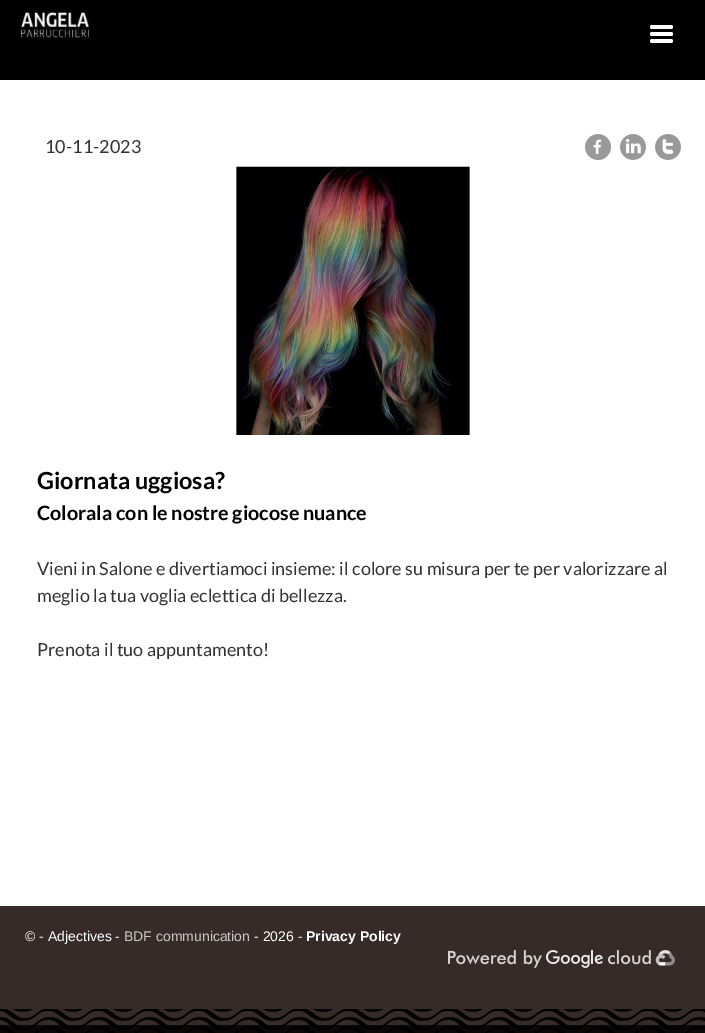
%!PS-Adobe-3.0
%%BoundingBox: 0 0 705 1033
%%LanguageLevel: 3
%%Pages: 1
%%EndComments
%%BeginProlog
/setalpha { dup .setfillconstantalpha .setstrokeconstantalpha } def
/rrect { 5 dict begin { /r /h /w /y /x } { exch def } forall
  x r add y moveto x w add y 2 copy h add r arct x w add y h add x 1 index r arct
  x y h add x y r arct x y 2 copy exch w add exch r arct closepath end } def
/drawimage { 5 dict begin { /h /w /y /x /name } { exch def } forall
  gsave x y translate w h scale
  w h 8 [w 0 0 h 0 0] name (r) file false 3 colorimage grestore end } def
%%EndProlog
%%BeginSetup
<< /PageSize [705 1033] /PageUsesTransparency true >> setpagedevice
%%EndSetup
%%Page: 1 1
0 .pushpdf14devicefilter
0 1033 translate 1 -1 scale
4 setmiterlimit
0.212 0.169 0.161 setrgbcolor
0 0 705 1033 rectfill
(images/1.raw) 0 1009 705 24 drawimage
0 setgray
0 0 705 80 rectfill
(images/2.raw) 21 11 69 28 drawimage
1 setgray
650 25 23 4 2 rrect fill
650 32 23 4 2 rrect fill
650 39 23 4 2 rrect fill
0 80 705 826 rectfill
(images/3.raw) 585 134 26 26 drawimage
(images/4.raw) 620 134 26 26 drawimage
(images/5.raw) 655 134 26 26 drawimage
(images/6.raw) 236 166 234 269 drawimage
(images/7.raw) 448 950 227 18 drawimage
0.8 setalpha
0 setgray
0 1025 705 8 rectfill
/Lato-Regular [18 0 0 -18 0 0] selectfont
1 setalpha
0.2 setgray
45 153 moveto (10-11-2023) show
/Lato-Bold [23.5 0 0 -23.5 0 0] selectfont
0 setgray
37 489 moveto (Giornata uggiosa?) show
/Lato-Bold [19.75 0 0 -19.75 0 0] selectfont
37 520 moveto (Colorala con le nostre giocose nuance) show
/Lato-Regular [18 0 0 -18 0 0] selectfont
0.2 setgray
37 575 moveto (Vieni in Salone e divertiamoci insieme: il colore su misura per te per valorizzare al) show
37 602 moveto (meglio la tua voglia eclettica di bellezza.) show
37 656 moveto (Prenota il tuo appuntamento!) show
/LiberationSans-Regular [14 0 0 -14 0 0] selectfont
1 setgray
25 941 moveto (© - Adjectives -) show
0.784 setgray
124 941 moveto (BDF communication) show
1 setgray
254 941 moveto (- 2026 -) show
/LiberationSans-Bold [14 0 0 -14 0 0] selectfont
306 941 moveto (Privacy Policy) show
.poppdf14devicefilter showpage
%%EOF
